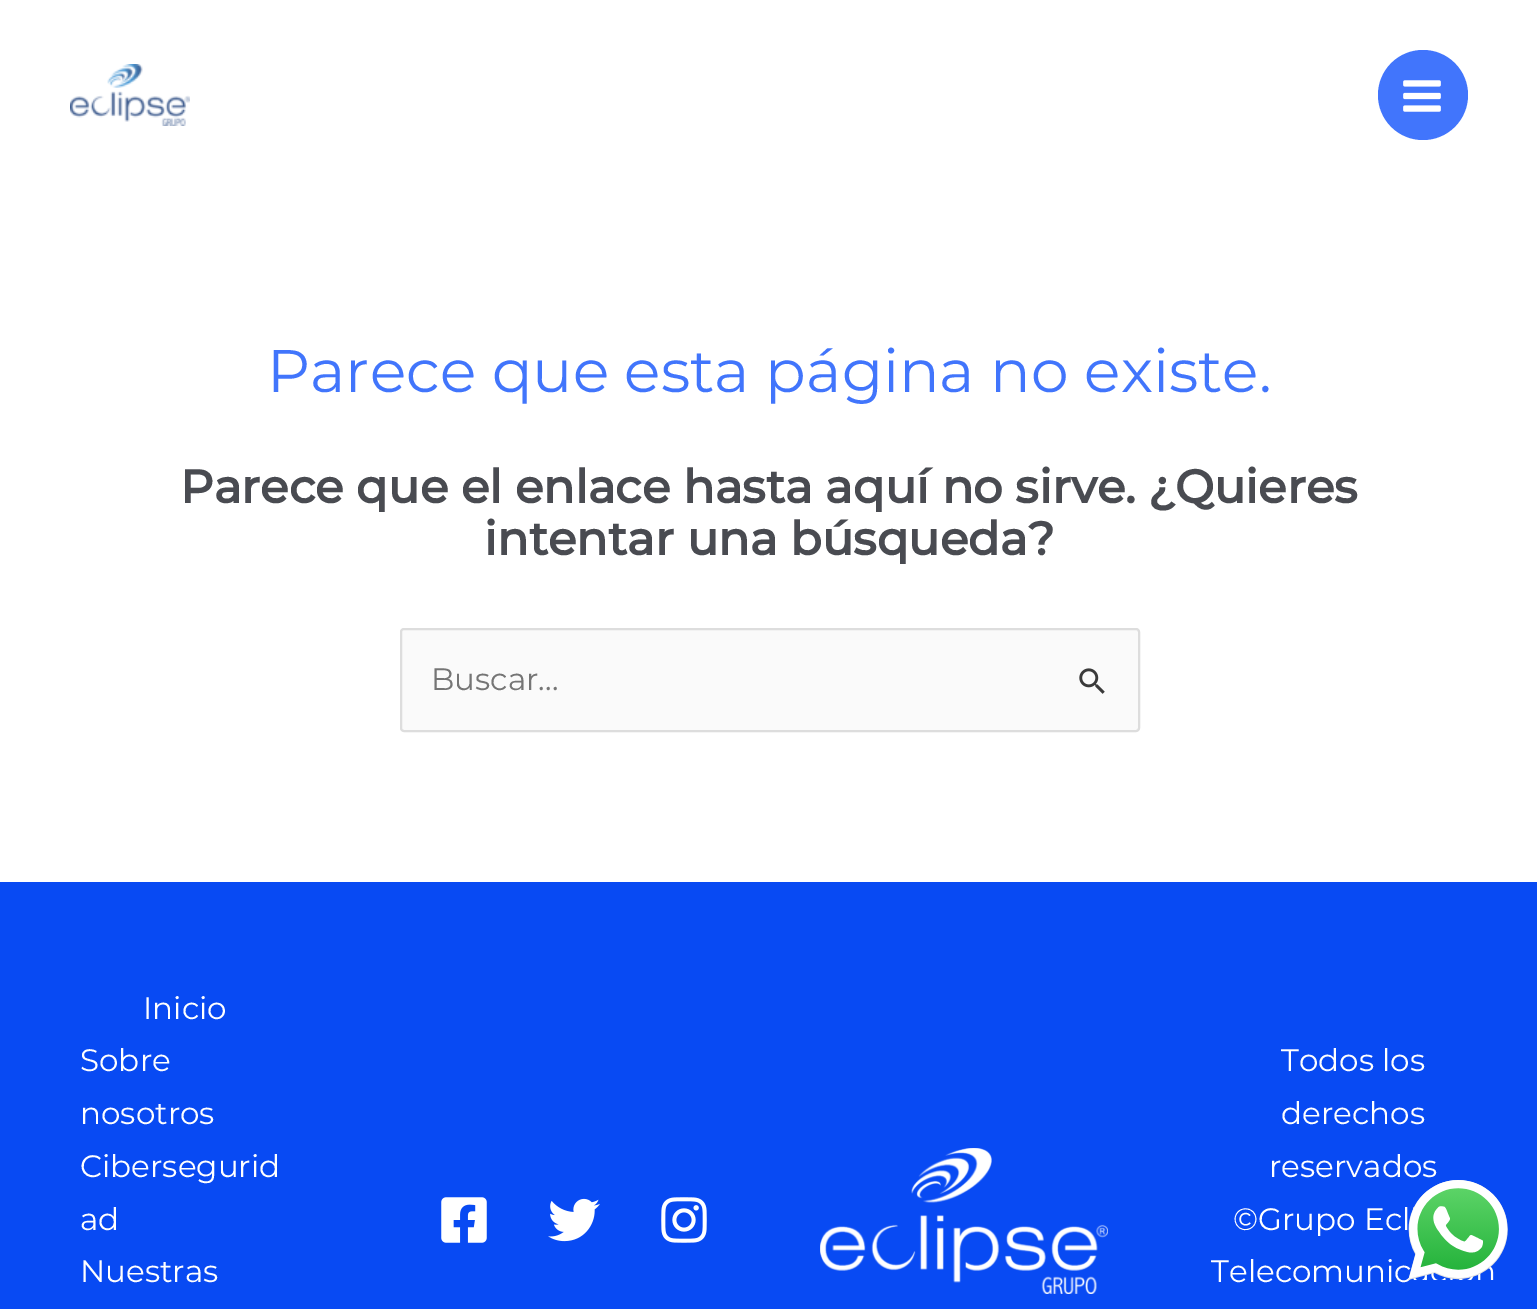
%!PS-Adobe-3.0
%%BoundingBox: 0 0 1537 1309
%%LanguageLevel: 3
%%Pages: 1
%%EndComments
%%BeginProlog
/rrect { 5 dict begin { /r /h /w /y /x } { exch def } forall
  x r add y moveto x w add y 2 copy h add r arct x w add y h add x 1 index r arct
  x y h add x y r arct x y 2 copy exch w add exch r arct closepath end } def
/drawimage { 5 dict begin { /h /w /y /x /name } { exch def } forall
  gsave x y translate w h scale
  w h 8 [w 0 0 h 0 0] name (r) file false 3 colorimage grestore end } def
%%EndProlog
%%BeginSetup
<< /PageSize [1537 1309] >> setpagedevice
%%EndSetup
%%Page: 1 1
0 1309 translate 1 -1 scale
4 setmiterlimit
1 setgray
0 0 1537 1309 rectfill
(images/1.raw) 70 64 120 62 drawimage
0.255 0.459 0.988 setrgbcolor
newpath 1423 95 45 0 360 arc closepath fill
(images/2.raw) 1403 80 38 32 drawimage
0.98 setgray
401 629 738 102 3 rrect gsave fill grestore
0.867 setgray
2 setlinewidth
stroke
(images/3.raw) 1079 668 26 26 drawimage
0.031 0.29 0.953 setrgbcolor
0 882 1537 427 rectfill
(images/4.raw) 441 1197 46 46 drawimage
(images/5.raw) 548 1198 52 44 drawimage
(images/6.raw) 661 1197 46 46 drawimage
(images/7.raw) 820 1148 288 146 drawimage
/Montserrat-Regular [60 0 0 -60 0 0] selectfont
0.255 0.459 0.988 setrgbcolor
267 392 moveto (Parece que esta página no existe.) show
/Montserrat-Bold [46.5 0 0 -46.5 0 0] selectfont
0.286 0.294 0.318 setrgbcolor
180 503 moveto (Parece que el enlace hasta aquí no sirve. ¿Quieres) show
484 555 moveto (intentar una búsqueda?) show
/Montserrat-Regular [31 0 0 -31 0 0] selectfont
0.459 setgray
431 690 moveto (Buscar...) show
1 setgray
143 1019 moveto (Inicio) show
80 1071 moveto (Sobre) show
80 1124 moveto (nosotros) show
80 1177 moveto (Cibersegurid) show
80 1230 moveto (ad) show
80 1282 moveto (Nuestras) show
1281 1071 moveto (Todos los) show
1281 1124 moveto (derechos) show
1269 1177 moveto (reservados) show
1233 1230 moveto (©Grupo Ecl) show
1211 1282 moveto (Telecomunic) show
(images/8.raw) 1408 1180 100 100 drawimage
showpage
%%EOF
